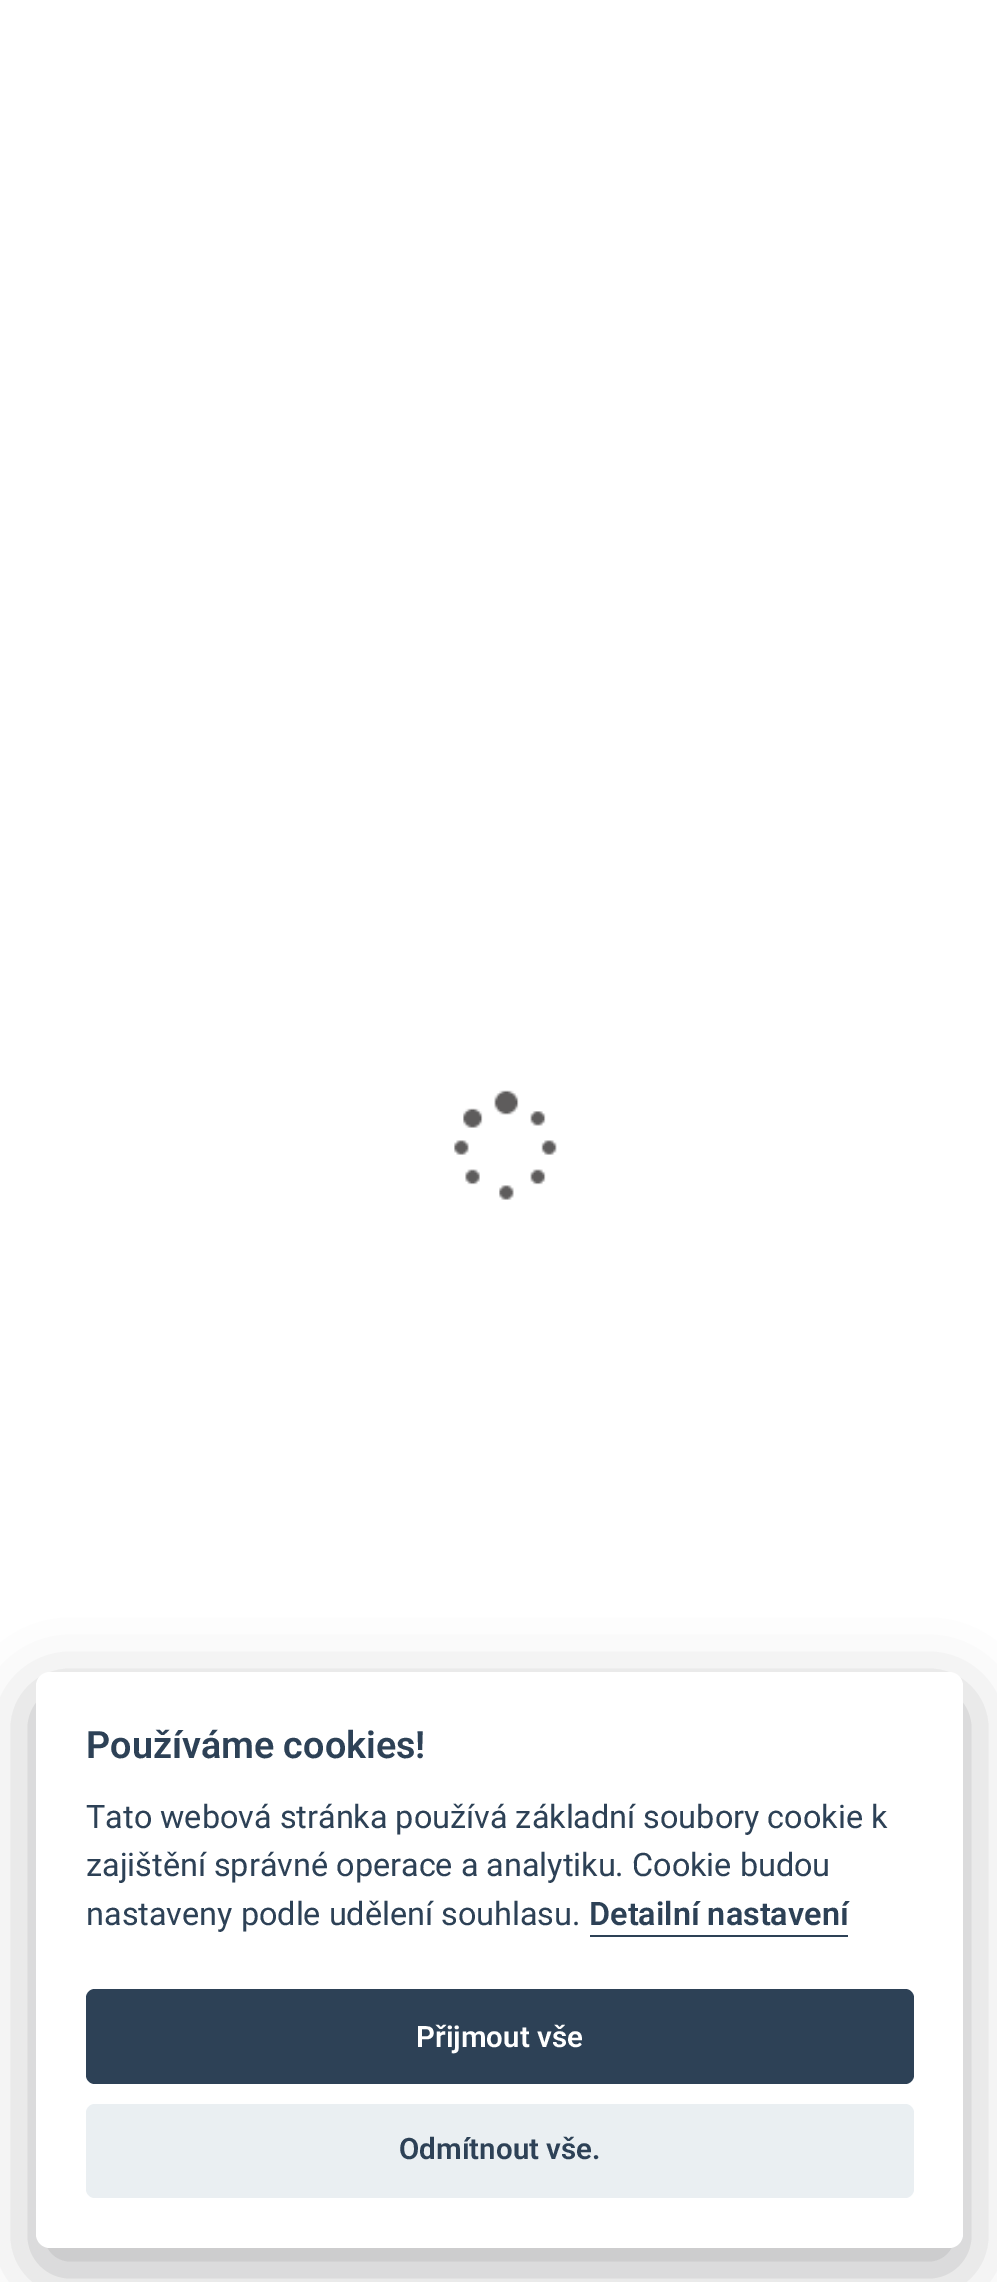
%!PS-Adobe-3.0
%%BoundingBox: 0 0 997 2282
%%LanguageLevel: 3
%%Pages: 1
%%EndComments
%%BeginProlog
/setalpha { dup .setfillconstantalpha .setstrokeconstantalpha } def
/rrect { 5 dict begin { /r /h /w /y /x } { exch def } forall
  x r add y moveto x w add y 2 copy h add r arct x w add y h add x 1 index r arct
  x y h add x y r arct x y 2 copy exch w add exch r arct closepath end } def
/softshadow { 12 dict begin { /a /b /q /h /w /y /x } { exch def } forall gsave /was 0 def
  9 -2 -9 { dup b mul 4 div /e exch def 1 sub .425 mul 2.718 exch exp 1 add a .99 .min exch div /now exch def
    1 1 now sub 1 was sub div sub setalpha /was now def
    w h .min e 2 mul add 0 gt { x e sub y e sub w e 2 mul add h e 2 mul add
      q e add b .6 mul add w h .min 2 div e add .min 0 .max rrect fill } if } for grestore end } def
/drawimage { 5 dict begin { /h /w /y /x /name } { exch def } forall
  gsave x y translate w h scale
  w h 8 [w 0 0 h 0 0] name (r) file false 3 colorimage grestore end } def
%%EndProlog
%%BeginSetup
<< /PageSize [997 2282] /PageUsesTransparency true >> setpagedevice
%%EndSetup
%%Page: 1 1
0 .pushpdf14devicefilter
0 2282 translate 1 -1 scale
4 setmiterlimit
1 setgray
0 0 997 2282 rectfill
(images/1.raw) 454 1090 103 110 drawimage
0.008 0.008 0.012 setrgbcolor
36 1694 927 576 14 34 0.28 softshadow
1 setgray
36 1672 927 576 14 rrect fill
0.176 0.255 0.337 setrgbcolor
590 1935 258 2 rectfill
86 1989 828 95 9 rrect fill
0.918 0.937 0.949 setrgbcolor
86 2104 828 94 9 rrect fill
/Roboto-SemiBold [37.75 0 0 -37.75 0 0] selectfont
0.176 0.255 0.337 setrgbcolor
86 1758 moveto (Používáme cookies!) show
/Roboto-Regular [32.4 0 0 -32.4 0 0] selectfont
86 1828 moveto (Tato webová stránka používá základní soubory cookie k) show
86 1876 moveto (zajištění správné operace a analytiku. Cookie budou) show
86 1925 moveto (nastaveny podle udělení souhlasu.) show
/Roboto-SemiBold [32.4 0 0 -32.4 0 0] selectfont
589 1925 moveto (Detailní nastavení) show
/Roboto-SemiBold [29.5 0 0 -29.5 0 0] selectfont
1 setgray
416 2047 moveto (Přijmout vše) show
0.176 0.255 0.337 setrgbcolor
399 2159 moveto (Odmítnout vše.) show
.poppdf14devicefilter showpage
%%EOF
